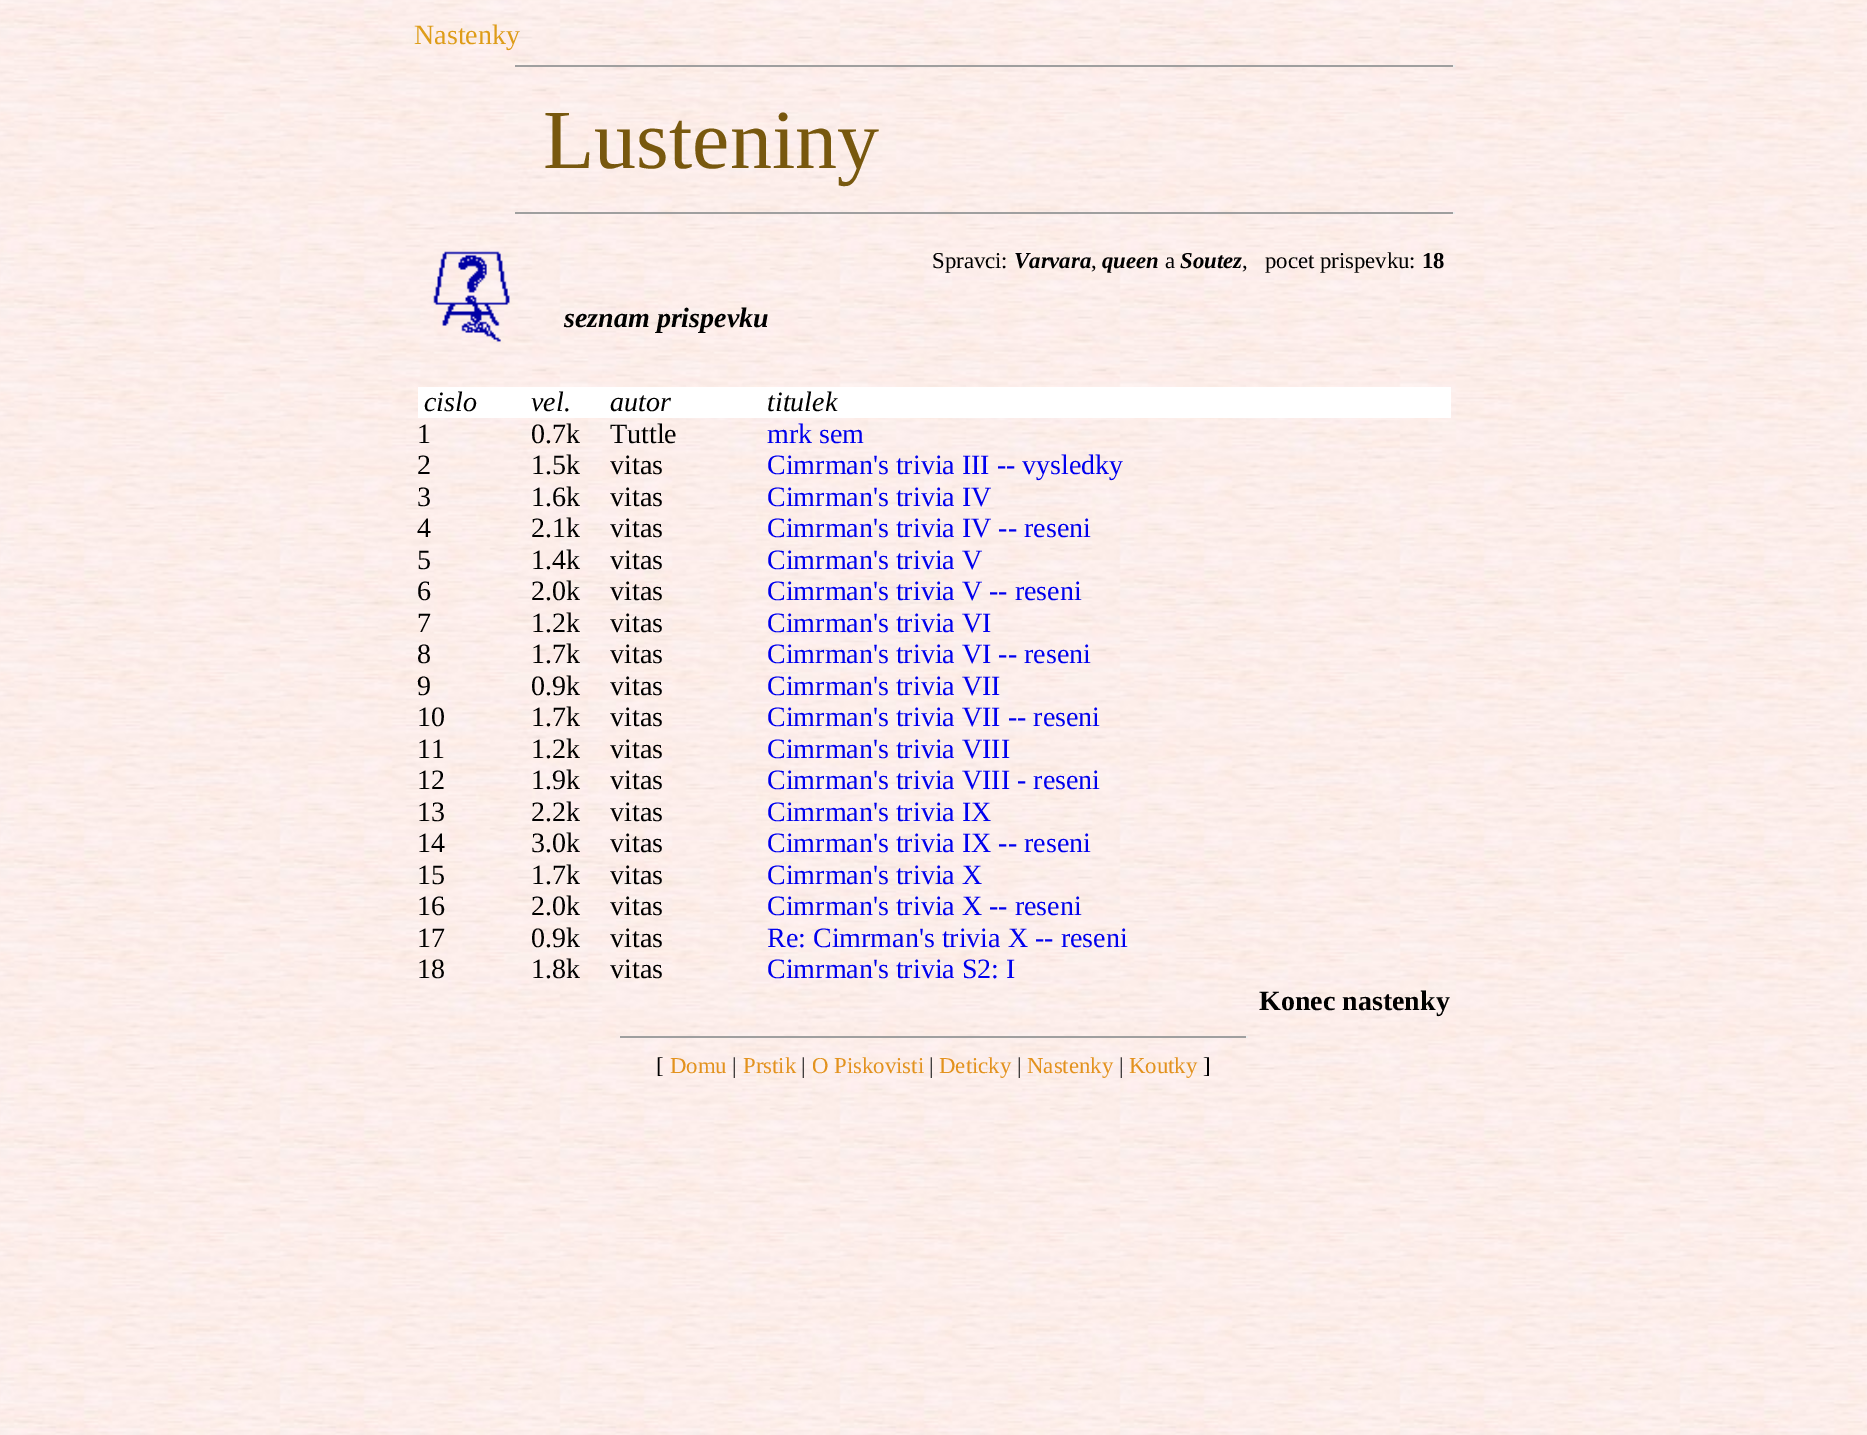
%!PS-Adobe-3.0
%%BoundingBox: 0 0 1867 1435
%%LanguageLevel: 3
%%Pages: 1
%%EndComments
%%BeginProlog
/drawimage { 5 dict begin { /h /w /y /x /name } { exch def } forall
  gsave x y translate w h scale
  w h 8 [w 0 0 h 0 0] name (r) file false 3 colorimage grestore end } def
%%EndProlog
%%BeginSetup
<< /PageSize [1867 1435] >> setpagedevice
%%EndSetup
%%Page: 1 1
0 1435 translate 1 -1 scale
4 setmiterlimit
1 setgray
0 0 1867 1435 rectfill
(images/1.raw) 0 0 1867 1435 drawimage
0.624 setgray
515 65 939 2 rectfill
0.933 setgray
1453 65 2 2 rectfill
0.624 setgray
515 212 939 2 rectfill
0.933 setgray
1453 212 2 2 rectfill
(images/2.raw) 433 251 77 91 drawimage
1 setgray
418 387 1033 31 rectfill
0.624 setgray
620 1036 628 2 rectfill
0.933 setgray
1246 1036 2 2 rectfill
/LiberationSerif-Regular [28 0 0 -28 0 0] selectfont
0.871 0.612 0.094 setrgbcolor
414 44 moveto (Nastenky) show
/LiberationSerif-Regular [84 0 0 -84 0 0] selectfont
0.471 0.345 0.055 setrgbcolor
543 168 moveto (Lusteniny) show
/LiberationSerif-Regular [22.75 0 0 -22.75 0 0] selectfont
0 setgray
932 268 moveto (Spravci:) show
/LiberationSerif-BoldItalic [22.75 0 0 -22.75 0 0] selectfont
1014 268 moveto (Varvara) show
/LiberationSerif-Regular [22.75 0 0 -22.75 0 0] selectfont
1091 268 moveto (,) show
/LiberationSerif-BoldItalic [22.75 0 0 -22.75 0 0] selectfont
1102 268 moveto (queen) show
/LiberationSerif-Regular [22.75 0 0 -22.75 0 0] selectfont
1165 268 moveto (a) show
/LiberationSerif-BoldItalic [22.75 0 0 -22.75 0 0] selectfont
1180 268 moveto (Soutez) show
/LiberationSerif-Regular [22.75 0 0 -22.75 0 0] selectfont
1242 268 moveto (,   pocet prispevku:) show
/LiberationSerif-Bold [22.75 0 0 -22.75 0 0] selectfont
1422 268 moveto (18) show
/LiberationSerif-BoldItalic [28 0 0 -28 0 0] selectfont
564 327 moveto (seznam prispevku) show
/LiberationSerif-Italic [28 0 0 -28 0 0] selectfont
424 411 moveto (cislo) show
531 411 moveto (vel.) show
610 411 moveto (autor) show
767 411 moveto (titulek) show
/LiberationSerif-Regular [28 0 0 -28 0 0] selectfont
417 443 moveto (1) show
531 443 moveto (0.7k) show
610 443 moveto (Tuttle) show
0 0 0.933 setrgbcolor
767 443 moveto (mrk sem) show
0 setgray
417 474 moveto (2) show
531 474 moveto (1.5k) show
610 474 moveto (vitas) show
0 0 0.933 setrgbcolor
767 474 moveto (Cimrman's trivia III -- vysledky) show
0 setgray
417 506 moveto (3) show
531 506 moveto (1.6k) show
610 506 moveto (vitas) show
0 0 0.933 setrgbcolor
767 506 moveto (Cimrman's trivia IV) show
0 setgray
417 537 moveto (4) show
531 537 moveto (2.1k) show
610 537 moveto (vitas) show
0 0 0.933 setrgbcolor
767 537 moveto (Cimrman's trivia IV -- reseni) show
0 setgray
417 569 moveto (5) show
531 569 moveto (1.4k) show
610 569 moveto (vitas) show
0 0 0.933 setrgbcolor
767 569 moveto (Cimrman's trivia V) show
0 setgray
417 600 moveto (6) show
531 600 moveto (2.0k) show
610 600 moveto (vitas) show
0 0 0.933 setrgbcolor
767 600 moveto (Cimrman's trivia V -- reseni) show
0 setgray
417 632 moveto (7) show
531 632 moveto (1.2k) show
610 632 moveto (vitas) show
0 0 0.933 setrgbcolor
767 632 moveto (Cimrman's trivia VI) show
0 setgray
417 663 moveto (8) show
531 663 moveto (1.7k) show
610 663 moveto (vitas) show
0 0 0.933 setrgbcolor
767 663 moveto (Cimrman's trivia VI -- reseni) show
0 setgray
417 695 moveto (9) show
531 695 moveto (0.9k) show
610 695 moveto (vitas) show
0 0 0.933 setrgbcolor
767 695 moveto (Cimrman's trivia VII) show
0 setgray
417 726 moveto (10) show
531 726 moveto (1.7k) show
610 726 moveto (vitas) show
0 0 0.933 setrgbcolor
767 726 moveto (Cimrman's trivia VII -- reseni) show
0 setgray
417 758 moveto (11) show
531 758 moveto (1.2k) show
610 758 moveto (vitas) show
0 0 0.933 setrgbcolor
767 758 moveto (Cimrman's trivia VIII) show
0 setgray
417 789 moveto (12) show
531 789 moveto (1.9k) show
610 789 moveto (vitas) show
0 0 0.933 setrgbcolor
767 789 moveto (Cimrman's trivia VIII - reseni) show
0 setgray
417 821 moveto (13) show
531 821 moveto (2.2k) show
610 821 moveto (vitas) show
0 0 0.933 setrgbcolor
767 821 moveto (Cimrman's trivia IX) show
0 setgray
417 852 moveto (14) show
531 852 moveto (3.0k) show
610 852 moveto (vitas) show
0 0 0.933 setrgbcolor
767 852 moveto (Cimrman's trivia IX -- reseni) show
0 setgray
417 884 moveto (15) show
531 884 moveto (1.7k) show
610 884 moveto (vitas) show
0 0 0.933 setrgbcolor
767 884 moveto (Cimrman's trivia X) show
0 setgray
417 915 moveto (16) show
531 915 moveto (2.0k) show
610 915 moveto (vitas) show
0 0 0.933 setrgbcolor
767 915 moveto (Cimrman's trivia X -- reseni) show
0 setgray
417 947 moveto (17) show
531 947 moveto (0.9k) show
610 947 moveto (vitas) show
0 0 0.933 setrgbcolor
767 947 moveto (Re: Cimrman's trivia X -- reseni) show
0 setgray
417 978 moveto (18) show
531 978 moveto (1.8k) show
610 978 moveto (vitas) show
0 0 0.933 setrgbcolor
767 978 moveto (Cimrman's trivia S2: I) show
/LiberationSerif-Bold [28 0 0 -28 0 0] selectfont
0 setgray
1259 1010 moveto (Konec nastenky) show
/LiberationSerif-Regular [22.75 0 0 -22.75 0 0] selectfont
656 1073 moveto ([) show
0.89 0.573 0.114 setrgbcolor
670 1073 moveto (Domu) show
0 setgray
732 1073 moveto (|) show
0.89 0.573 0.114 setrgbcolor
743 1073 moveto (Prstik) show
0 setgray
801 1073 moveto (|) show
0.89 0.573 0.114 setrgbcolor
812 1073 moveto (O Piskovisti) show
0 setgray
929 1073 moveto (|) show
0.89 0.573 0.114 setrgbcolor
939 1073 moveto (Deticky) show
0 setgray
1017 1073 moveto (|) show
0.89 0.573 0.114 setrgbcolor
1027 1073 moveto (Nastenky) show
0 setgray
1119 1073 moveto (|) show
0.89 0.573 0.114 setrgbcolor
1129 1073 moveto (Koutky) show
0 setgray
1203 1073 moveto (]) show
showpage
%%EOF
